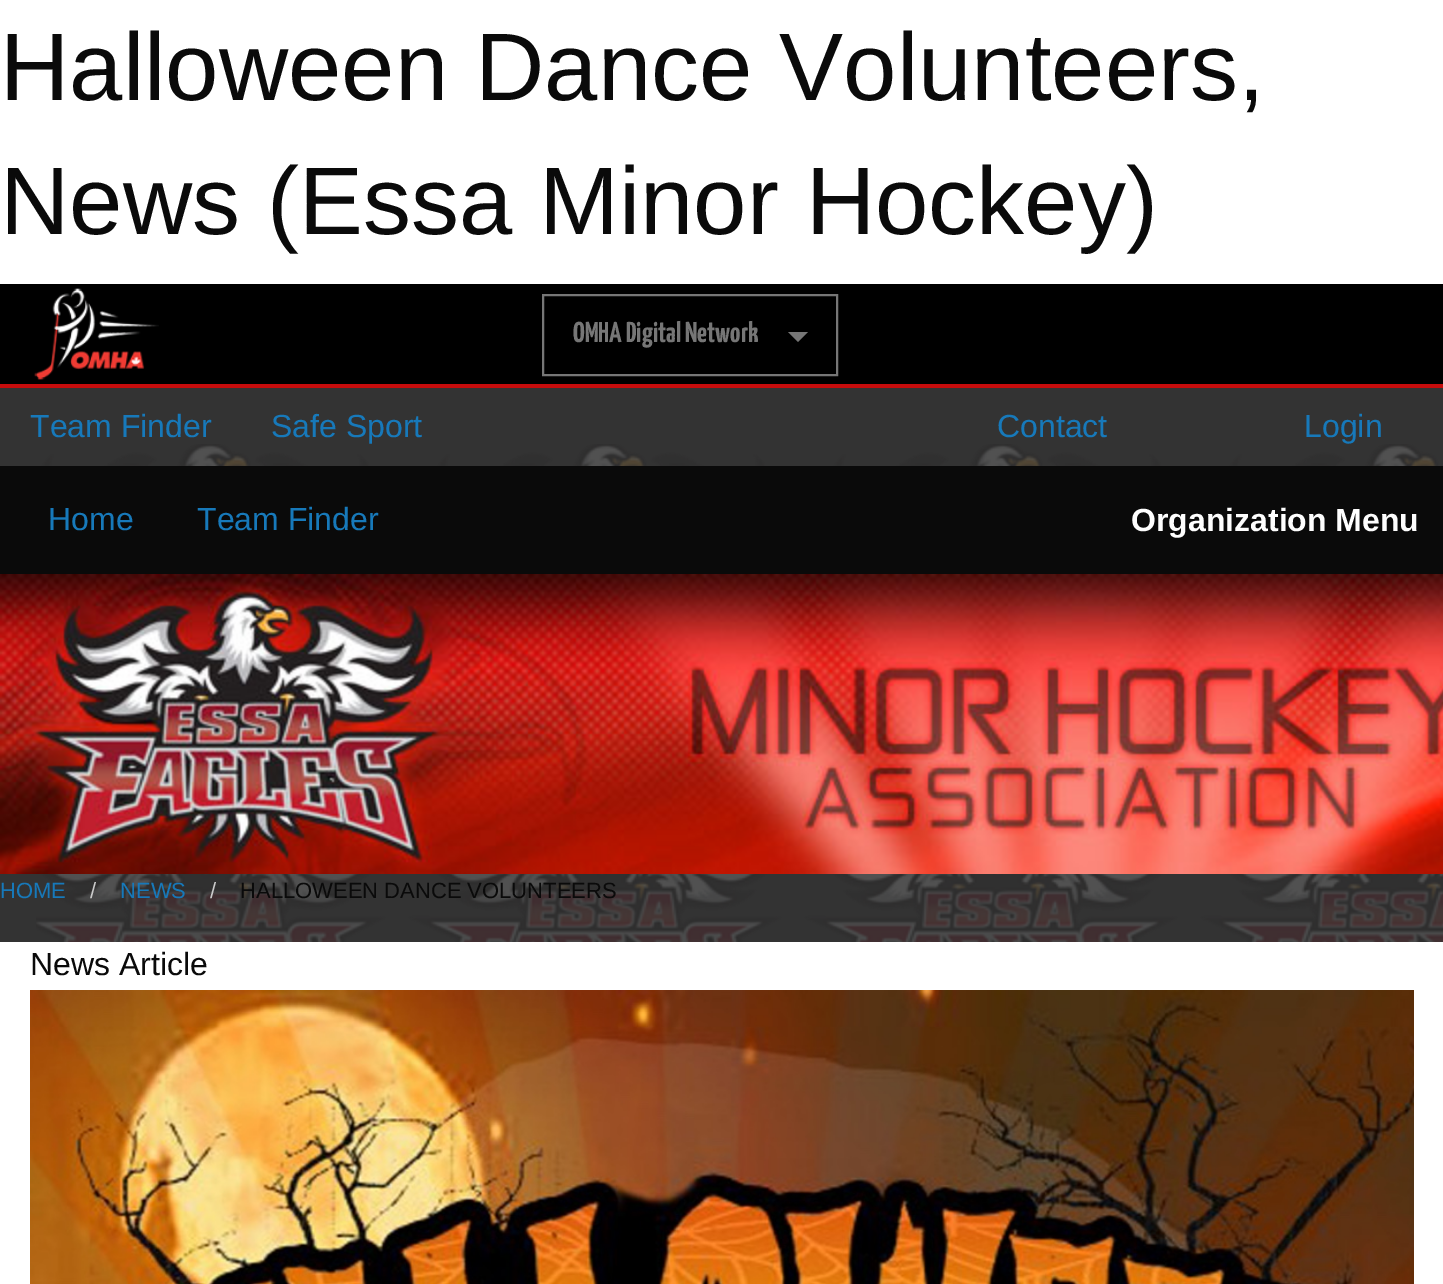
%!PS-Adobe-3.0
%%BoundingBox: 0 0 1443 1284
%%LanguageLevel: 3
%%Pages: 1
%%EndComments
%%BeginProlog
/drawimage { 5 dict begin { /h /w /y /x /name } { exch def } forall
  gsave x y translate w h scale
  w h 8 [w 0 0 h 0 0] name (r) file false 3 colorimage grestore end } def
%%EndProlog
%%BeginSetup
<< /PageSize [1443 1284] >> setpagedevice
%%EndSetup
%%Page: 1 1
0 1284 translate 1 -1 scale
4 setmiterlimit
1 setgray
0 0 1443 1284 rectfill
0 setgray
0 284 1443 100 rectfill
0.776 0.047 0.047 setrgbcolor
0 384 1443 4 rectfill
(images/1.raw) 34 288 125 92 drawimage
0.463 setgray
2 setlinewidth
543 295 294 80 rectstroke
newpath 788 332 moveto 808 332 lineto 798 342 lineto closepath fill
0.2 setgray
0 388 1443 554 rectfill
(images/2.raw) 36 444 1407 498 drawimage
0.039 setgray
0 466 1443 108 rectfill
(images/3.raw) 0 574 1443 300 drawimage
(images/4.raw) 30 990 1384 294 drawimage
/LiberationSans-Regular [96 0 0 -96 0 0] selectfont
0 100 moveto (Halloween Dance Volunteers,) show
0 234 moveto (News \(Essa Minor Hockey\)) show
/YanoneKaffeesatz-ExtraLight [28.75 0 0 -28.75 0 0] selectfont
0.463 setgray
573 342 moveto (OMHA Digital Network) show
/LiberationSans-Regular [32 0 0 -32 0 0] selectfont
0.09 0.475 0.729 setrgbcolor
30 437 moveto (Team Finder) show
271 437 moveto (Safe Sport) show
997 437 moveto (Contact) show
1304 437 moveto (Login) show
48 530 moveto (Home) show
197 530 moveto (Team Finder) show
/LiberationSans-Bold [32 0 0 -32 0 0] selectfont
0.996 setgray
1131 531 moveto (Organization Menu) show
/LiberationSans-Regular [22 0 0 -22 0 0] selectfont
0.09 0.475 0.729 setrgbcolor
0 898 moveto (HOME) show
0.792 setgray
90 898 moveto (/) show
0.09 0.475 0.729 setrgbcolor
120 898 moveto (NEWS) show
0.792 setgray
210 898 moveto (/) show
0.039 setgray
240 898 moveto (HALLOWEEN DANCE VOLUNTEERS) show
/LiberationSans-Regular [32 0 0 -32 0 0] selectfont
30 975 moveto (News Article) show
showpage
%%EOF
